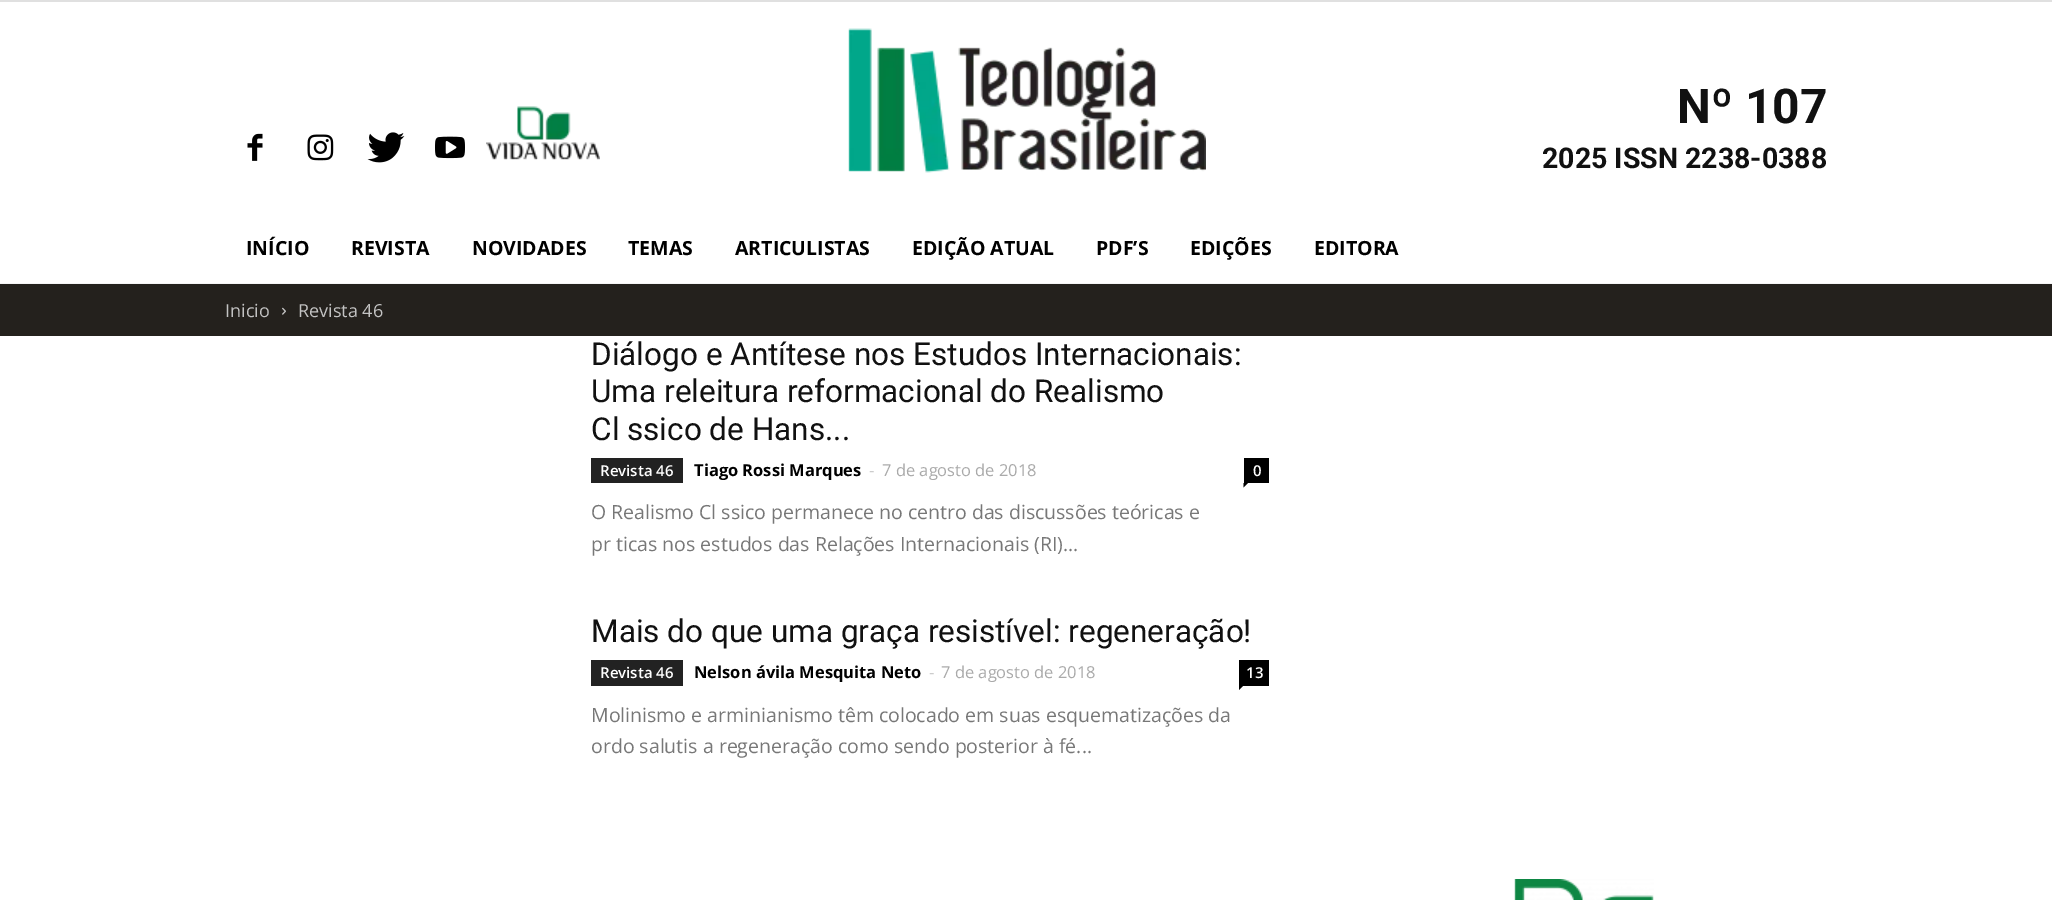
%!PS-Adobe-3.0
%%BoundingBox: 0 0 2052 900
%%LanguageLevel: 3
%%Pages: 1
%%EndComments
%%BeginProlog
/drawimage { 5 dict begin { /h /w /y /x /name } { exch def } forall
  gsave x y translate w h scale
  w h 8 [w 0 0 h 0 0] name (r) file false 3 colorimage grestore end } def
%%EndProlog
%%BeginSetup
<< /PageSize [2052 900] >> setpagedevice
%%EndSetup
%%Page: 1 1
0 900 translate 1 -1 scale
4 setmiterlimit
1 setgray
0 0 2052 900 rectfill
0.878 setgray
0 0 2052 2 rectfill
(images/1.raw) 247 133 16 28 drawimage
(images/2.raw) 307 134 27 27 drawimage
(images/3.raw) 367 132 38 31 drawimage
(images/4.raw) 435 136 30 23 drawimage
(images/5.raw) 486 106 114 54 drawimage
(images/6.raw) 848 28 358 145 drawimage
0.961 setgray
0 283 2052 1 rectfill
0.141 0.129 0.114 setrgbcolor
0 284 2052 52 rectfill
(images/7.raw) 282 307 4 8 drawimage
0.133 setgray
591 458 92 25 rectfill
0 setgray
1244 458 25 25 rectfill
newpath 1243.5 483 moveto 1248 483 lineto 1243.5 487.5 lineto closepath fill
0.133 setgray
591 660 92 26 rectfill
0 setgray
1239 660 30 26 rectfill
newpath 1239 685.5 moveto 1243.5 685.5 lineto 1239 690 lineto closepath fill
(images/8.raw) 1514 879 140 21 drawimage
/Roboto-Bold [48 0 0 -48 0 0] selectfont
0.067 setgray
1677 123 moveto (Nº 107) show
/Roboto-Bold [28.5 0 0 -28.5 0 0] selectfont
1542 168 moveto (2025 ISSN 2238-0388) show
/OpenSans-Bold [19.5 0 0 -19.5 0 0] selectfont
0 setgray
246 255 moveto (INÍCIO) show
351 255 moveto (REVISTA) show
472 255 moveto (NOVIDADES) show
628 255 moveto (TEMAS) show
735 255 moveto (ARTICULISTAS) show
912 255 moveto (EDIÇÃO ATUAL) show
1096 255 moveto (PDF’S) show
1190 255 moveto (EDIÇÕES) show
1314 255 moveto (EDITORA) show
/OpenSans-Regular [18 0 0 -18 0 0] selectfont
0.765 setgray
225 317 moveto (Inicio) show
298 317 moveto (Revista 46) show
/Roboto-Regular [31.5 0 0 -31.5 0 0] selectfont
0.067 setgray
591 365 moveto (Diálogo e Antítese nos Estudos Internacionais:) show
591 402 moveto (Uma releitura reformacional do Realismo) show
591 440 moveto (Cl ssico de Hans...) show
/OpenSans-SemiBold [15 0 0 -15 0 0] selectfont
1 setgray
600 476 moveto (Revista 46) show
/OpenSans-Bold [16.5 0 0 -16.5 0 0] selectfont
0 setgray
694 476 moveto (Tiago Rossi Marques) show
/OpenSans-Regular [16.5 0 0 -16.5 0 0] selectfont
0.8 setgray
869 476 moveto (-) show
0.667 setgray
882 476 moveto (7 de agosto de 2018) show
/OpenSans-SemiBold [15 0 0 -15 0 0] selectfont
1 setgray
1253 476 moveto (0) show
/OpenSans-Regular [19.5 0 0 -19.5 0 0] selectfont
0.467 setgray
591 519 moveto (O Realismo Cl ssico permanece no centro das discussões teóricas e) show
591 551 moveto (pr ticas nos estudos das Relações Internacionais \(RI\)...) show
/Roboto-Regular [31.5 0 0 -31.5 0 0] selectfont
0.067 setgray
591 642 moveto (Mais do que uma graça resistível: regeneração!) show
/OpenSans-SemiBold [15 0 0 -15 0 0] selectfont
1 setgray
600 678 moveto (Revista 46) show
/OpenSans-Bold [16.5 0 0 -16.5 0 0] selectfont
0 setgray
694 678 moveto (Nelson ávila Mesquita Neto) show
/OpenSans-Regular [16.5 0 0 -16.5 0 0] selectfont
0.8 setgray
929 678 moveto (-) show
0.667 setgray
941 678 moveto (7 de agosto de 2018) show
/OpenSans-SemiBold [15 0 0 -15 0 0] selectfont
1 setgray
1246 678 moveto (13) show
/OpenSans-Regular [19.5 0 0 -19.5 0 0] selectfont
0.467 setgray
591 722 moveto (Molinismo e arminianismo têm colocado em suas esquematizações da) show
591 753 moveto (ordo salutis a regeneração como sendo posterior à fé...) show
showpage
%%EOF
